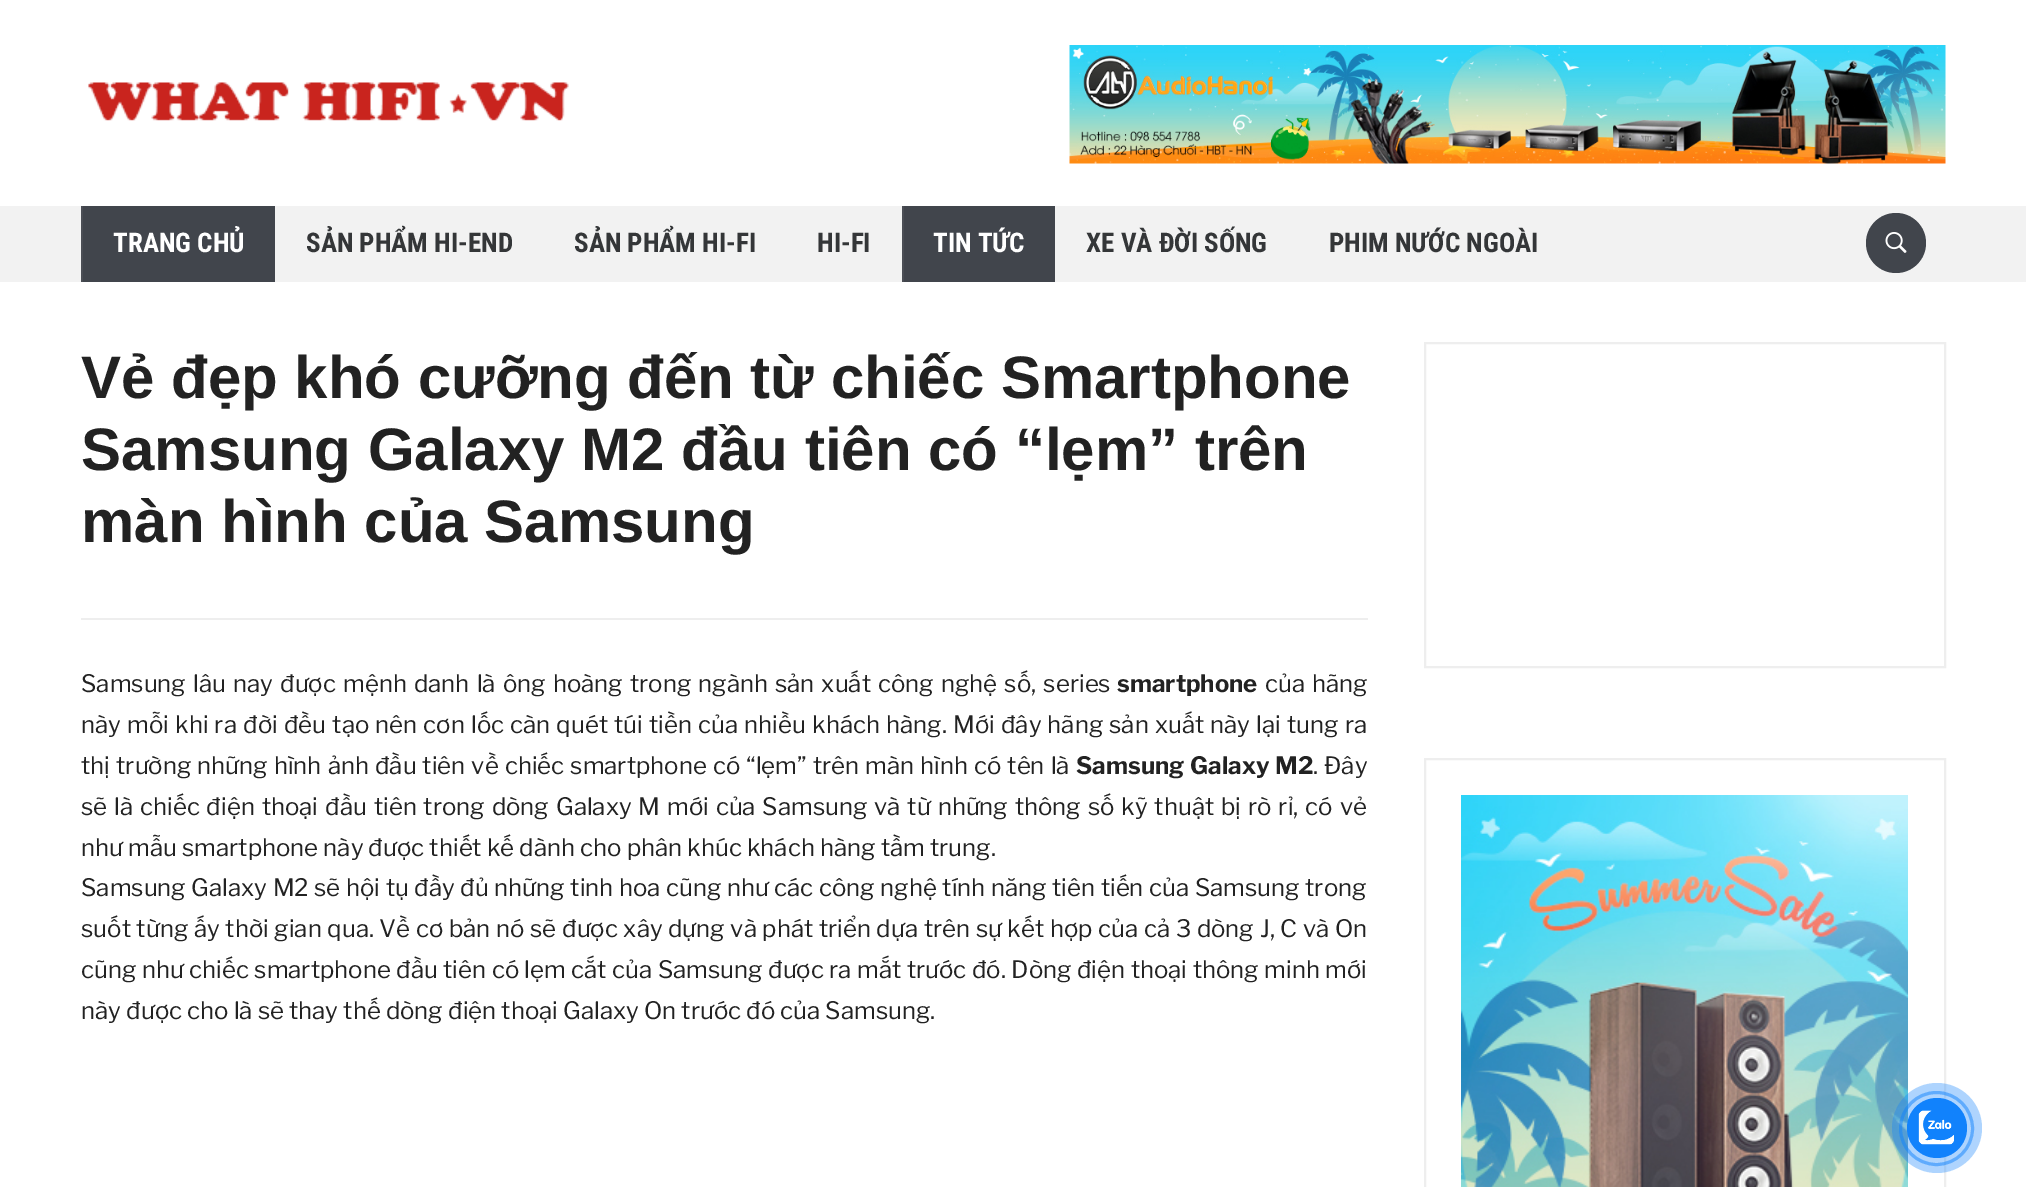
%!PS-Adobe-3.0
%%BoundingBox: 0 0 2026 1187
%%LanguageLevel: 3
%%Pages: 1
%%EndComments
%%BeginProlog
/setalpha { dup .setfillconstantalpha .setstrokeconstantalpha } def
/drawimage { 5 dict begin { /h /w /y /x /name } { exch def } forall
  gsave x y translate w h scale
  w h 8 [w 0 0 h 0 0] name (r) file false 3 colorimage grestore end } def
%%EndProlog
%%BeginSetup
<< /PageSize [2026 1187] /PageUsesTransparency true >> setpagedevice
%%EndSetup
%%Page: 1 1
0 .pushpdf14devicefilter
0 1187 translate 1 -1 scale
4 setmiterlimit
1 setgray
0 0 2026 1187 rectfill
(images/1.raw) 88 82 481 39 drawimage
(images/2.raw) 1069 45 877 119 drawimage
0.949 setgray
0 206 2026 76 rectfill
0.255 0.271 0.298 setrgbcolor
83 206 192 76 rectfill
0.294 0.306 0.333 setrgbcolor
81 206 2 76 rectfill
0.255 0.271 0.298 setrgbcolor
904 206 151 76 rectfill
0.294 0.306 0.333 setrgbcolor
902 206 2 76 rectfill
0.255 0.271 0.298 setrgbcolor
newpath 1896 243 30 0 360 arc closepath fill
(images/3.raw) 1885 232 22 21 drawimage
0.933 setgray
81 618 1287 2 rectfill
2 setlinewidth
1425 343 520 324 rectstroke
1425 759 520 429 rectstroke
(images/4.raw) 1461 795 447 392 drawimage
0.5 setalpha
0.067 0.51 0.988 setrgbcolor
3 setlinewidth
newpath 1936.5 1128.5 36 0 360 arc closepath stroke
0.34 setalpha
newpath 1937 1128 45 0 360 arc closepath fill
1 setalpha
newpath 1937 1128 30 0 360 arc closepath fill
(images/5.raw) 1918 1110 36 35 drawimage
/RobotoCondensed-Bold [27 0 0 -27 0 0] selectfont
1 setgray
113 252 moveto (TRANG CHỦ) show
0.204 0.212 0.22 setrgbcolor
306 252 moveto (SẢN PHẨM HI-END) show
574 252 moveto (SẢN PHẨM HI-FI) show
817 252 moveto (HI-FI) show
1 setgray
933 252 moveto (TIN TỨC) show
0.204 0.212 0.22 setrgbcolor
1086 252 moveto (XE VÀ ĐỜI SỐNG) show
1329 252 moveto (PHIM NƯỚC NGOÀI) show
/LiberationSans-Bold [60 0 0 -60 0 0] selectfont
0.133 setgray
81 398 moveto (Vẻ đẹp khó cưỡng đến từ chiếc Smartphone) show
81 470 moveto (Samsung Galaxy M2 đầu tiên có “lẹm” trên) show
81 542 moveto (màn hình của Samsung) show
/LibreFranklin-Regular [24 0 0 -24 0 0] selectfont
81 692 moveto 2 0 32 (Samsung lâu nay được mệnh danh là ông hoàng trong ngành sản xuất công nghệ số, series) widthshow
/LibreFranklin-Bold [24 0 0 -24 0 0] selectfont
1117 692 moveto (smartphone) show
/LibreFranklin-Regular [24 0 0 -24 0 0] selectfont
1265 692 moveto 2 0 32 (của hãng) widthshow
81 733 moveto 1 0 32 (này mỗi khi ra đời đều tạo nên cơn lốc càn quét túi tiền của nhiều khách hàng. Mới đây hãng sản xuất này lại tung ra) widthshow
81 774 moveto 0.9 0 32 (thị trường những hình ảnh đầu tiên về chiếc smartphone có “lẹm” trên màn hình có tên là) widthshow
/LibreFranklin-Bold [24 0 0 -24 0 0] selectfont
1076 774 moveto 1 0 32 (Samsung Galaxy M2) widthshow
/LibreFranklin-Regular [24 0 0 -24 0 0] selectfont
1313 774 moveto 0.9 0 32 (. Đây) widthshow
81 815 moveto 1.75 0 32 (sẽ là chiếc điện thoại đầu tiên trong dòng Galaxy M mới của Samsung và từ những thông số kỹ thuật bị rò rỉ, có vẻ) widthshow
81 856 moveto (như mẫu smartphone này được thiết kế dành cho phân khúc khách hàng tầm trung.) show
81 896 moveto 0.4 0 32 (Samsung Galaxy M2 sẽ hội tụ đầy đủ những tinh hoa cũng như các công nghệ tính năng tiên tiến của Samsung trong) widthshow
81 937 moveto 0.5 0 32 (suốt từng ấy thời gian qua. Về cơ bản nó sẽ được xây dựng và phát triển dựa trên sự kết hợp của cả 3 dòng J, C và On) widthshow
81 978 moveto 0.3 0 32 (cũng như chiếc smartphone đầu tiên có lẹm cắt của Samsung được ra mắt trước đó. Dòng điện thoại thông minh mới) widthshow
81 1019 moveto (này được cho là sẽ thay thế dòng điện thoại Galaxy On trước đó của Samsung.) show
.poppdf14devicefilter showpage
%%EOF
